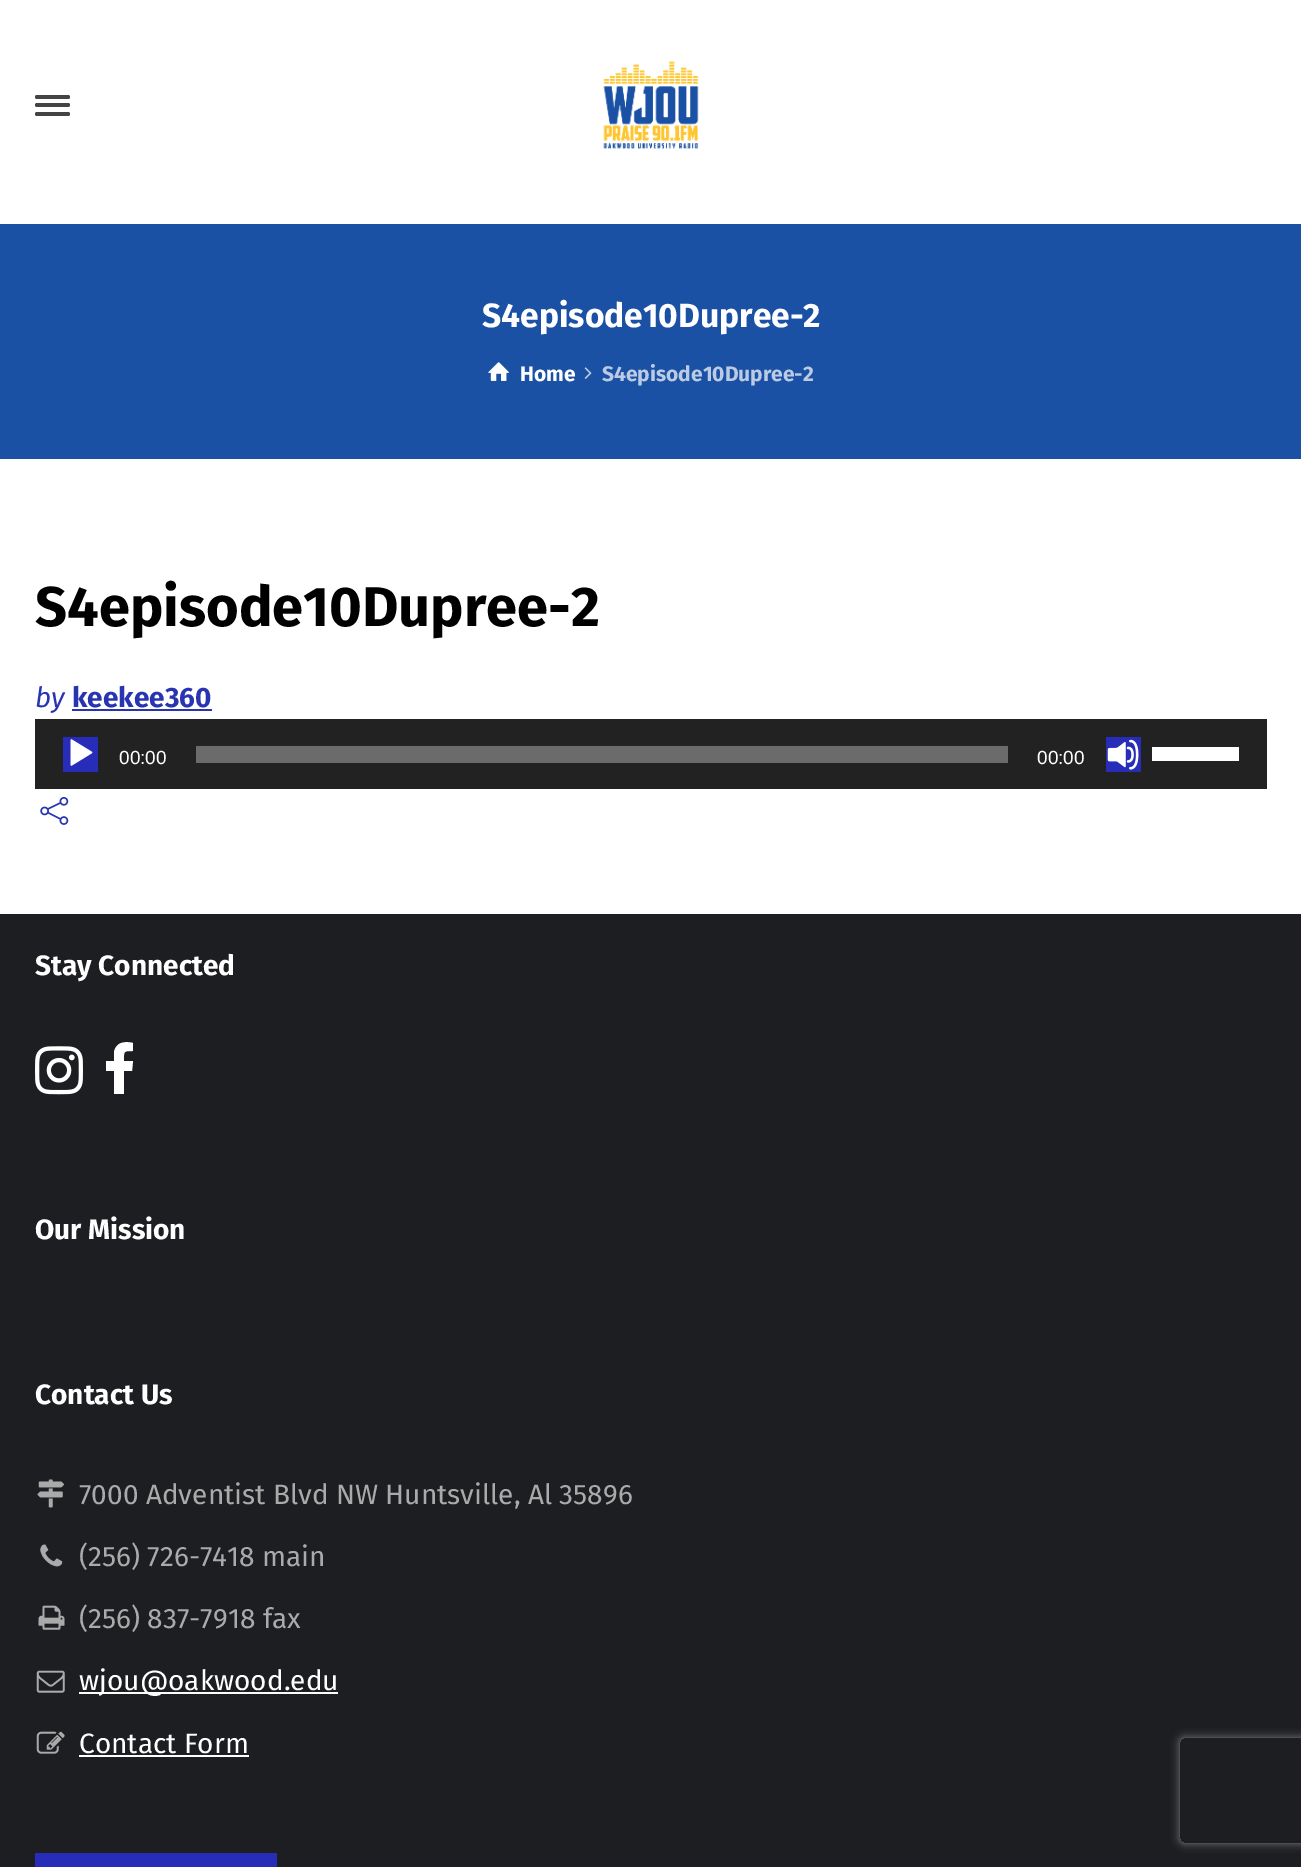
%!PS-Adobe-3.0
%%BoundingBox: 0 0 1301 1867
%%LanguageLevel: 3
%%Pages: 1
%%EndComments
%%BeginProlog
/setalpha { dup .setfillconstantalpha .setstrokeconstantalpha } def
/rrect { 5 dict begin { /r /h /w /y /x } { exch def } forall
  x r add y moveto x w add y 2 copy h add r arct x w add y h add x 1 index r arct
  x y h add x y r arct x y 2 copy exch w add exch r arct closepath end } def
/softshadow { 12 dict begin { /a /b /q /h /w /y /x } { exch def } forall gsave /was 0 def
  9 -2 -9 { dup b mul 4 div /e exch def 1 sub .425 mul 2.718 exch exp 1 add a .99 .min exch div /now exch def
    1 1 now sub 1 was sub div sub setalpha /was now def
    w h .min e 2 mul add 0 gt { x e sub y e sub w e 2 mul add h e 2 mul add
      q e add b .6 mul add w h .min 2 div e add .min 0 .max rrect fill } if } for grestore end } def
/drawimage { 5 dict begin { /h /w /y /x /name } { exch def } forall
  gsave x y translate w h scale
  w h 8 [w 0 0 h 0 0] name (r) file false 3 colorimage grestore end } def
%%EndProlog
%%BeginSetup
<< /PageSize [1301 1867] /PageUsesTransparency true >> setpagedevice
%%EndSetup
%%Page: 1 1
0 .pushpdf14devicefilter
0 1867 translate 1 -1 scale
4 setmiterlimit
1 setgray
0 0 1301 1867 rectfill
0.267 setgray
35 95 35 4 2 rrect fill
35 103 35 4 2 rrect fill
35 112 35 4 2 rrect fill
(images/1.raw) 603 61 96 88 drawimage
0.106 0.318 0.643 setrgbcolor
0 224 1301 235 rectfill
(images/2.raw) 488 362 21 19 drawimage
(images/3.raw) 584 367 8 12 drawimage
0.161 0.208 0.69 setrgbcolor
72 709 140 2 rectfill
0.133 setgray
35 719 1232 70 rectfill
0.153 0.173 0.725 setrgbcolor
63 737 35 35 rectfill
(images/4.raw) 70 739 23 27 drawimage
0.42 setgray
196 746 812 17 rectfill
0.153 0.173 0.725 setrgbcolor
1106 737 35 35 rectfill
(images/5.raw) 1107 739 32 31 drawimage
1 setgray
1152 747 87 14 rectfill
(images/6.raw) 40 797 29 28 drawimage
0.114 0.118 0.133 setrgbcolor
0 914 1301 953 rectfill
(images/7.raw) 35 1046 48 49 drawimage
1 setgray
newpath 133 1043 moveto 133 1051 lineto 123 1051 124 1051 124 1061 curveto 133 1061 lineto 132 1071 lineto 124 1071 lineto 124 1094 lineto 114 1094 lineto 114 1071 lineto 106 1071 lineto 106 1061 lineto 114 1061 lineto 114 1052 lineto 116 1042 125 1041 133 1043 curveto closepath fill
(images/8.raw) 37 1479 28 29 drawimage
(images/9.raw) 40 1544 23 23 drawimage
(images/10.raw) 38 1605 27 25 drawimage
(images/11.raw) 36 1670 29 23 drawimage
79 1692 259 2 rectfill
(images/12.raw) 36 1731 29 23 drawimage
79 1755 170 2 rectfill
0.153 0.173 0.725 setrgbcolor
35 1853 242 14 rectfill
gsave
newpath 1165 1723 moveto 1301 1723 lineto 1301 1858 lineto 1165 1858 lineto closepath 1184 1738 moveto 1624 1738 lineto 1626 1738 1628 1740 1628 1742 curveto 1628 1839 lineto 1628 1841 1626 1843 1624 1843 curveto 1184 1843 lineto 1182 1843 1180 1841 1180 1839 curveto 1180 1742 lineto 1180 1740 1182 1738 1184 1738 curveto closepath eoclip newpath
0.502 setgray
1180 1738 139 105 4 4.5 1 softshadow
grestore
/FiraSans-Bold [33.6 0 0 -33.6 0 0] selectfont
1 setgray
482 327 moveto (S4episode10Dupree-2) show
/FiraSans-Bold [21 0 0 -21 0 0] selectfont
520 381 moveto (Home) show
0.733 0.796 0.894 setrgbcolor
602 381 moveto (S4episode10Dupree-2) show
/FiraSans-Bold [56 0 0 -56 0 0] selectfont
0 setgray
35 626 moveto (S4episode10Dupree-2) show
/FiraSans-Italic [28 0 0 -28 0 0] selectfont
0.161 0.208 0.69 setrgbcolor
35 707 moveto (by) show
/FiraSans-Bold [28 0 0 -28 0 0] selectfont
72 707 moveto (keekee360) show
/LiberationSans-Regular [19 0 0 -19 0 0] selectfont
1 setgray
119 764 moveto (00:00) show
1037 764 moveto (00:00) show
/FiraSans-Bold [28 0 0 -28 0 0] selectfont
35 975 moveto (Stay Connected) show
35 1239 moveto (Our Mission) show
35 1404 moveto (Contact Us) show
/FiraSans-Regular [28 0 0 -28 0 0] selectfont
0.667 setgray
79 1504 moveto (7000 Adventist Blvd NW Huntsville, Al 35896) show
79 1566 moveto (\(256\) 726-7418 main) show
79 1628 moveto (\(256\) 837-7918 fax) show
1 setgray
79 1690 moveto (wjou@oakwood.edu) show
79 1753 moveto (Contact Form) show
.poppdf14devicefilter showpage
%%EOF
